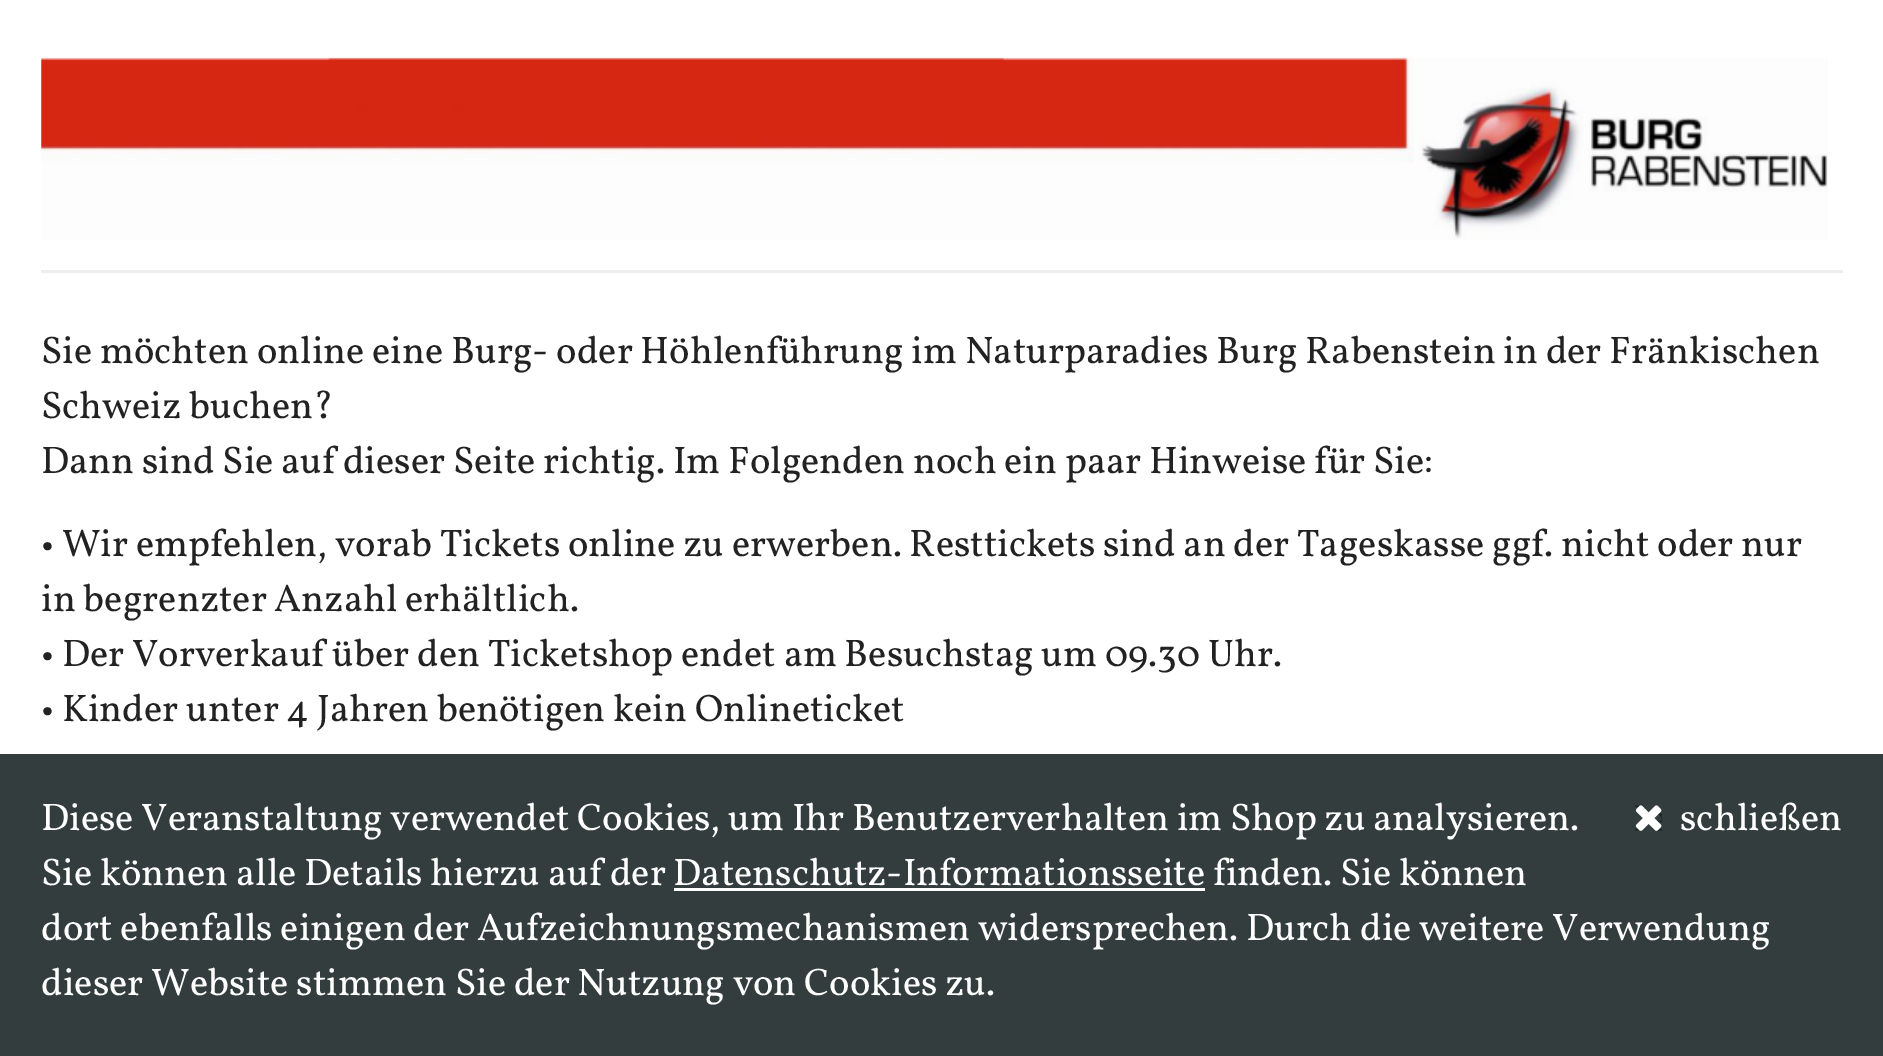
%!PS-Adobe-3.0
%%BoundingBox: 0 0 1883 1056
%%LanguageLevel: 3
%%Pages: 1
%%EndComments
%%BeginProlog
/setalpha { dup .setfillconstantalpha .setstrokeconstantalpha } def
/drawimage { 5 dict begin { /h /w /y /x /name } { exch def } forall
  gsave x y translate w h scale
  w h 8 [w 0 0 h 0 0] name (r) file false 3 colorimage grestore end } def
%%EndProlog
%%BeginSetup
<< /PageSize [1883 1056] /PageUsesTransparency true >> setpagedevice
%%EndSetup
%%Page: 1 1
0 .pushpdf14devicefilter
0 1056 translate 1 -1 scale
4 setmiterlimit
1 setgray
0 0 1883 1056 rectfill
0.933 setgray
41 270 1802 3 rectfill
(images/1.raw) 41 57 1787 183 drawimage
0.9 setalpha
0.118 0.157 0.157 setrgbcolor
0 754 1883 302 rectfill
1 setalpha
1 setgray
674 888 531 3 rectfill
(images/2.raw) 1635 805 27 26 drawimage
/Vollkorn-Regular [38.5 0 0 -38.5 0 0] selectfont
0.133 setgray
41 363 moveto (Sie möchten online eine Burg- oder Höhlenführung im Naturparadies Burg Rabenstein in der Fränkischen) show
41 418 moveto (Schweiz buchen?) show
41 473 moveto (Dann sind Sie auf dieser Seite richtig. Im Folgenden noch ein paar Hinweise für Sie:) show
41 556 moveto (• Wir empfehlen, vorab Tickets online zu erwerben. Resttickets sind an der Tageskasse ggf. nicht oder nur) show
41 611 moveto (in begrenzter Anzahl erhältlich.) show
41 666 moveto (• Der Vorverkauf über den Ticketshop endet am Besuchstag um 09.30 Uhr.) show
41 721 moveto (• Kinder unter 4 Jahren benötigen kein Onlineticket) show
1 setgray
41 830 moveto (Diese Veranstaltung verwendet Cookies, um Ihr Benutzerverhalten im Shop zu analysieren.) show
41 885 moveto (Sie können alle Details hierzu auf der Datenschutz-Informationsseite finden. Sie können) show
41 940 moveto (dort ebenfalls einigen der Aufzeichnungsmechanismen widersprechen. Durch die weitere Verwendung) show
41 995 moveto (dieser Website stimmen Sie der Nutzung von Cookies zu.) show
1680 830 moveto (schließen) show
.poppdf14devicefilter showpage
%%EOF
